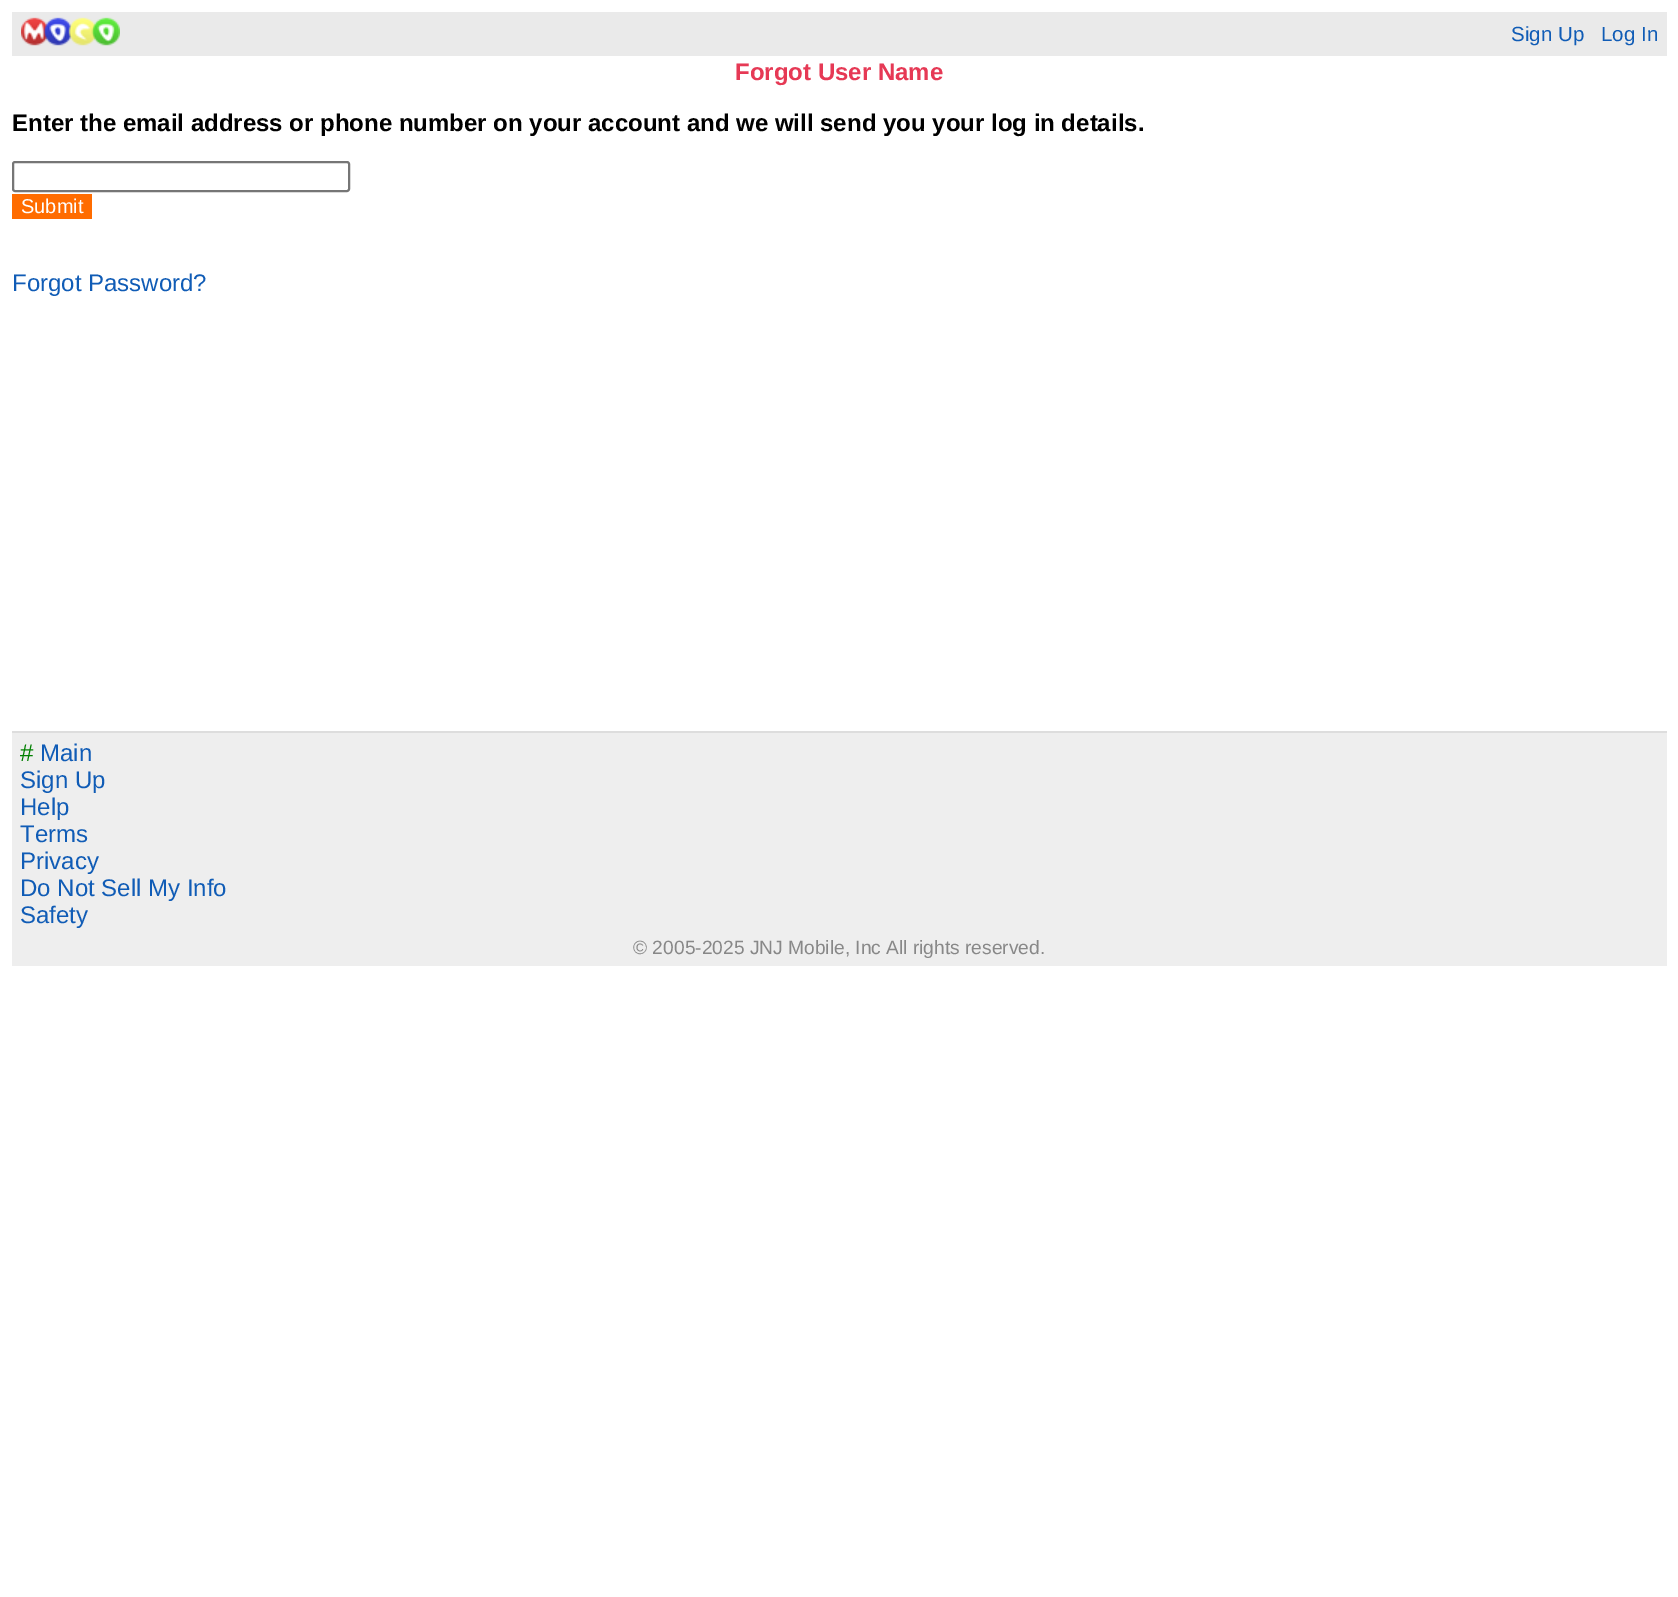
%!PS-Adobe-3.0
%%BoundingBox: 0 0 1678 1597
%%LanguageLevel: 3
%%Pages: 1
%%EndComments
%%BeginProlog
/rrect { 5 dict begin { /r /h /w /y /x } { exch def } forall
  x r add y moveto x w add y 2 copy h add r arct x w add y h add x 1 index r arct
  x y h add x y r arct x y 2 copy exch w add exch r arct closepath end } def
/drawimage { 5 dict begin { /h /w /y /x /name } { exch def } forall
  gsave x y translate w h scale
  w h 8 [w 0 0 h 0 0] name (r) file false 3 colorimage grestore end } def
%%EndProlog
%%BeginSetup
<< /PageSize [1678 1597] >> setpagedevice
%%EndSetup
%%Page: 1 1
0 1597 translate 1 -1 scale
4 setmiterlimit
1 setgray
0 0 1678 1597 rectfill
0.918 setgray
12 12 1655 44 rectfill
(images/1.raw) 21 17 99 29 drawimage
0.463 setgray
2 setlinewidth
13 162 336 29 2 rrect stroke
1 0.424 0 setrgbcolor
12 194 80 25 rectfill
0.933 setgray
12 733 1655 233 rectfill
0.867 setgray
12 731 1655 2 rectfill
/LiberationSans-Regular [20.5 0 0 -20.5 0 0] selectfont
0.063 0.361 0.714 setrgbcolor
1511 41 moveto (Sign Up) show
1601 41 moveto (Log In) show
/LiberationSans-Bold [24 0 0 -24 0 0] selectfont
0.902 0.224 0.333 setrgbcolor
735 80 moveto (Forgot User Name) show
0 setgray
12 131 moveto (Enter the email address or phone number on your account and we will send you your log in details.) show
/LiberationSans-Regular [20 0 0 -20 0 0] selectfont
1 setgray
21 213 moveto (Submit) show
/LiberationSans-Regular [24 0 0 -24 0 0] selectfont
0.063 0.361 0.714 setrgbcolor
12 291 moveto (Forgot Password?) show
0 0.502 0 setrgbcolor
20 761 moveto (#) show
0.063 0.361 0.714 setrgbcolor
40 761 moveto (Main) show
20 788 moveto (Sign Up) show
20 815 moveto (Help) show
20 842 moveto (Terms) show
20 869 moveto (Privacy) show
20 896 moveto (Do Not Sell My Info) show
20 923 moveto (Safety) show
/LiberationSans-Regular [19.2 0 0 -19.2 0 0] selectfont
0.533 setgray
633 954 moveto (© 2005-2025 JNJ Mobile, Inc All rights reserved.) show
showpage
%%EOF
